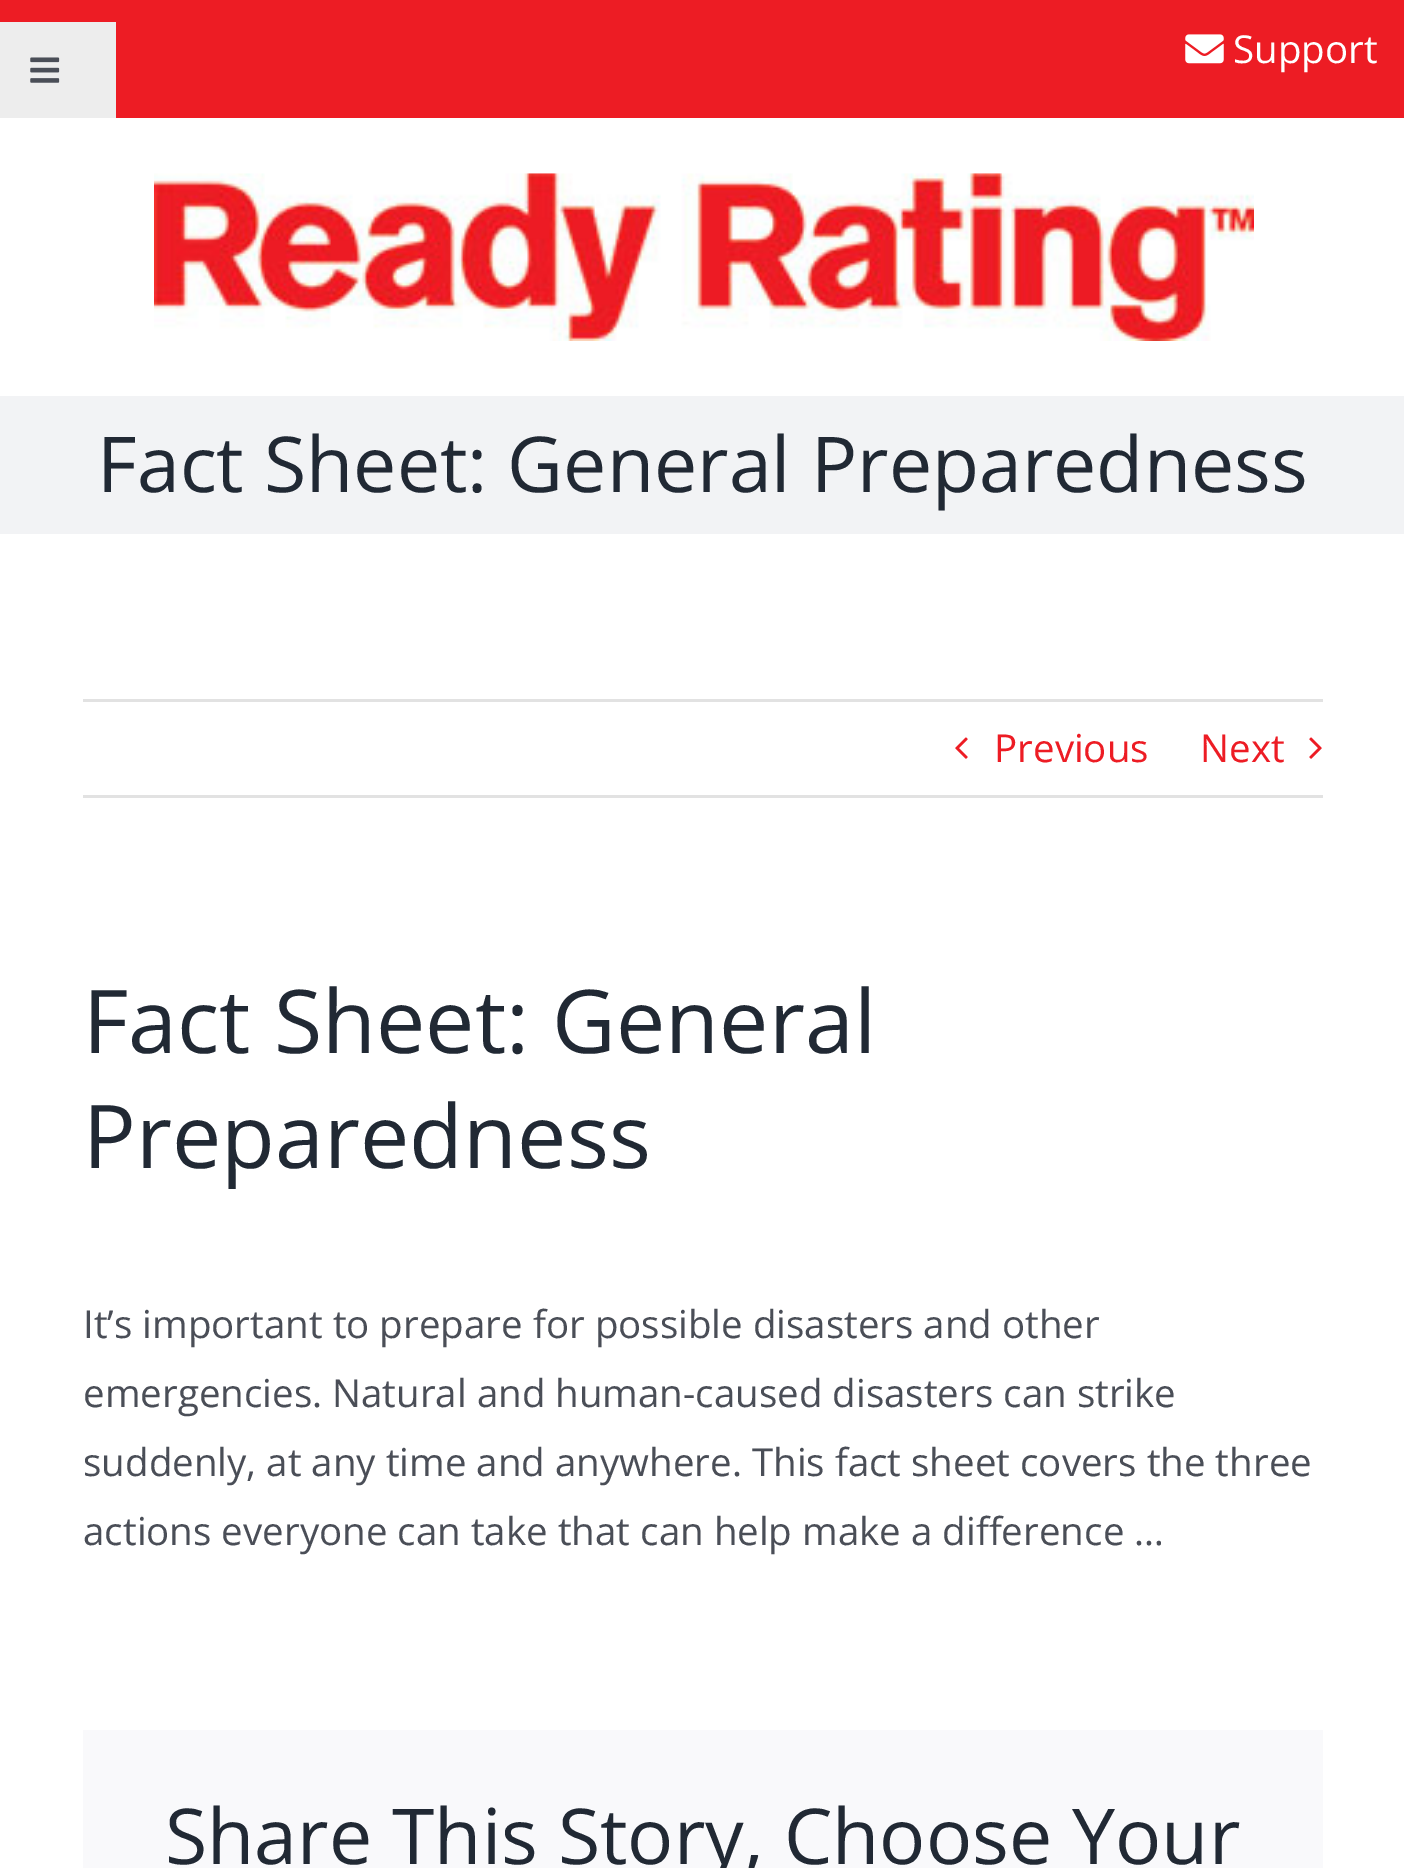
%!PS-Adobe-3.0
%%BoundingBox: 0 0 1404 1868
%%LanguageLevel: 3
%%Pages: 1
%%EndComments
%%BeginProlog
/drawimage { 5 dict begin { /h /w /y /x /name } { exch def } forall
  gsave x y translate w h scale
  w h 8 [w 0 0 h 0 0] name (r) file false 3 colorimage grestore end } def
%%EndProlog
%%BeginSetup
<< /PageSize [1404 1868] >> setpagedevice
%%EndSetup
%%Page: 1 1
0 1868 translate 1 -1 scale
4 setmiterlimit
1 setgray
0 0 1404 1868 rectfill
0.929 0.11 0.141 setrgbcolor
0 0 1404 118 rectfill
0.929 setgray
0 22 116 96 rectfill
(images/1.raw) 30 57 30 26 drawimage
(images/2.raw) 1185 34 39 30 drawimage
(images/3.raw) 154 173 1100 168 drawimage
0.949 0.953 0.961 setrgbcolor
0 396 1404 138 rectfill
0.886 setgray
83 699 1240 3 rectfill
83 795 1240 3 rectfill
(images/4.raw) 955 737 13 22 drawimage
(images/5.raw) 1309 737 13 22 drawimage
0.976 0.976 0.984 setrgbcolor
83 1730 1240 138 rectfill
/OpenSans-Regular [38.5 0 0 -38.5 0 0] selectfont
1 setgray
1233 63 moveto (Support) show
/OpenSans-Regular [77 0 0 -77 0 0] selectfont
0.129 0.161 0.204 setrgbcolor
97 492 moveto (Fact Sheet: General Preparedness) show
/OpenSans-Regular [38.5 0 0 -38.5 0 0] selectfont
0.929 0.11 0.141 setrgbcolor
994 762 moveto (Previous) show
1200 762 moveto (Next) show
/OpenSans-Regular [88 0 0 -88 0 0] selectfont
0.129 0.161 0.204 setrgbcolor
83 1053 moveto (Fact Sheet: General) show
83 1168 moveto (Preparedness) show
/OpenSans-Regular [38.5 0 0 -38.5 0 0] selectfont
0.29 0.306 0.341 setrgbcolor
83 1338 moveto (It’s important to prepare for possible disasters and other) show
83 1407 moveto (emergencies. Natural and human-caused disasters can strike) show
83 1476 moveto (suddenly, at any time and anywhere. This fact sheet covers the three) show
83 1545 moveto (actions everyone can take that can help make a difference …) show
/OpenSans-Regular [77 0 0 -77 0 0] selectfont
0.129 0.161 0.204 setrgbcolor
165 1864 moveto (Share This Story, Choose Your) show
showpage
%%EOF
